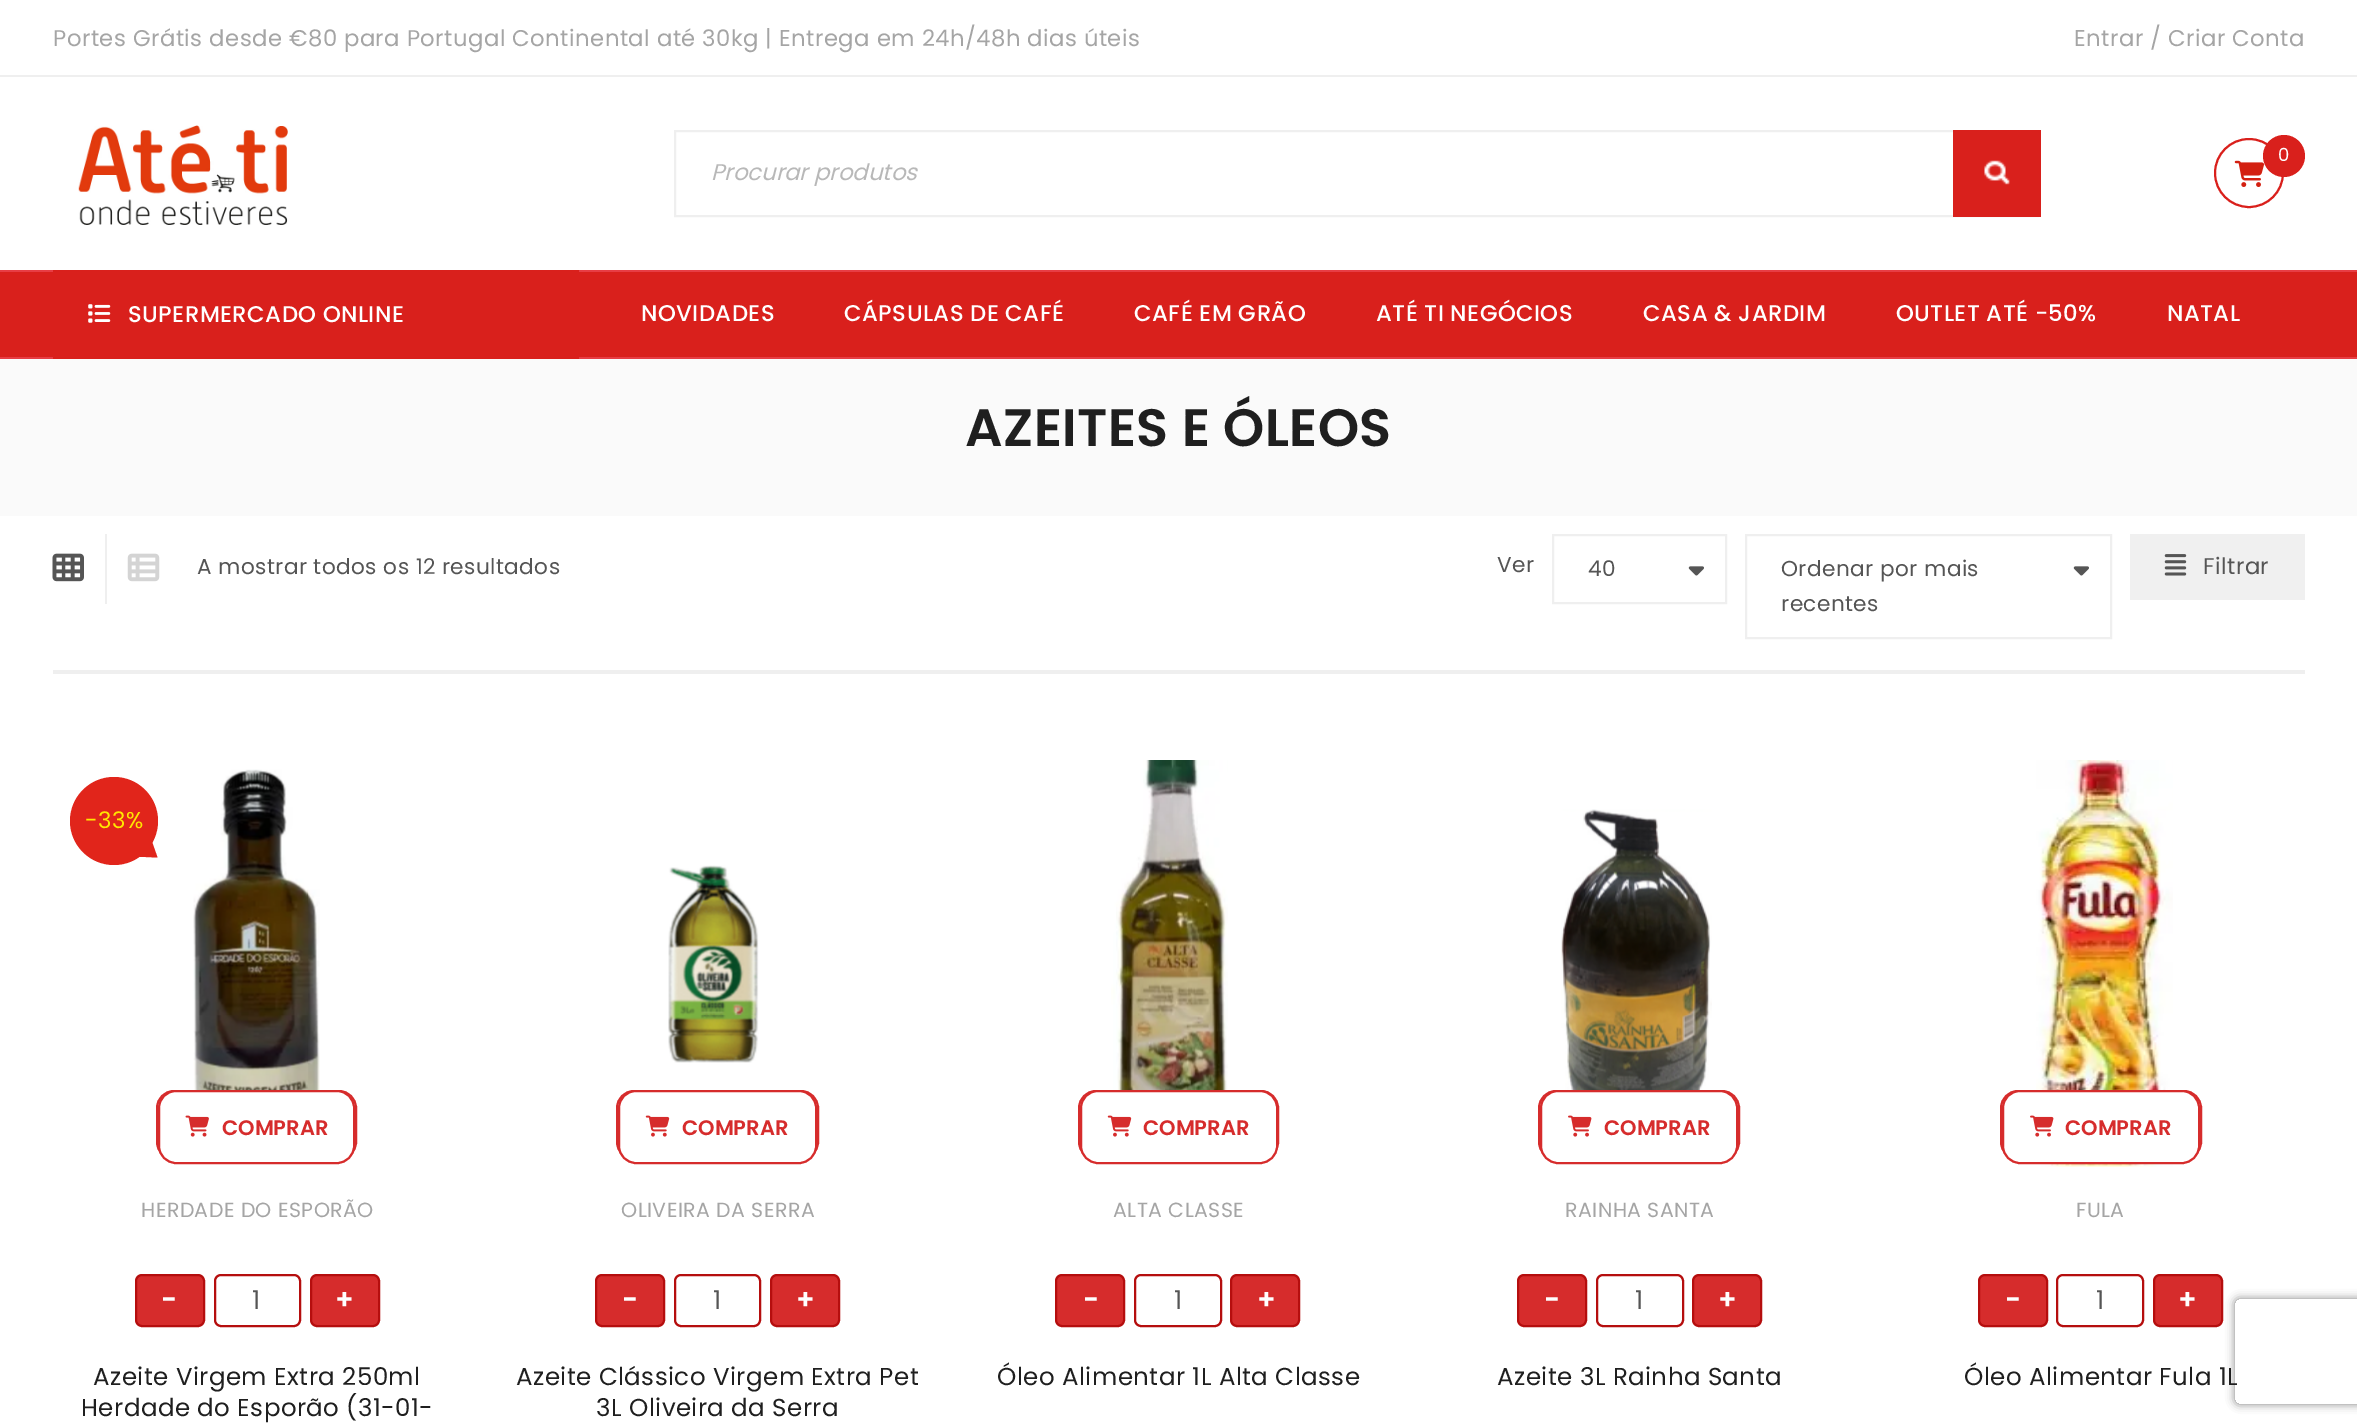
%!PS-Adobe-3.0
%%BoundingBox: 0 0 2357 1428
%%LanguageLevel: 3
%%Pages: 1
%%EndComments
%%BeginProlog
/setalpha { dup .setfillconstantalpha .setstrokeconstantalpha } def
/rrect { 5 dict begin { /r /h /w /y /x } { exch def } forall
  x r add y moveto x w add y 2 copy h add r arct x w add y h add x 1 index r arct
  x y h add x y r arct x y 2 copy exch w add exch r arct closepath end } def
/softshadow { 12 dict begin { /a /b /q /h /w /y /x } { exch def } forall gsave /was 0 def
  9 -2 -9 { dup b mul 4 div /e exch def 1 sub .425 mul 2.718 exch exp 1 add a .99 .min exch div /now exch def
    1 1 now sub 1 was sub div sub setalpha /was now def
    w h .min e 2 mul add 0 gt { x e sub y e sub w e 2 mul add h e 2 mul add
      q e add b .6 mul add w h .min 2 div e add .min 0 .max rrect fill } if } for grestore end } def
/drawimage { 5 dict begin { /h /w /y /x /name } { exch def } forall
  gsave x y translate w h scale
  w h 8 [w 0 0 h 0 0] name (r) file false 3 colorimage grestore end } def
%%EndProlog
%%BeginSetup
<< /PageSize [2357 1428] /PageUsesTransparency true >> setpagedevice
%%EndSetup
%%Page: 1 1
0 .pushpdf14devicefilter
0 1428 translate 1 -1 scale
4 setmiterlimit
1 setgray
0 0 2357 1428 rectfill
0.937 setgray
0 75 2357 2 rectfill
(images/1.raw) 78 125 210 100 drawimage
0.851 0.125 0.11 setrgbcolor
2 setlinewidth
newpath 2249 173 34 0 360 arc closepath stroke
(images/2.raw) 2234 160 30 27 drawimage
newpath 2284 156 21 0 360 arc closepath fill
0.937 setgray
675 131 1363 85 rectstroke
0.851 0.125 0.11 setrgbcolor
1953 130 88 87 rectfill
(images/3.raw) 1984 160 26 25 drawimage
0 272 2357 85 rectfill
0.906 0.239 0.267 setrgbcolor
0 270 2357 2 rectfill
0 357 2357 2 rectfill
0.851 0.125 0.11 setrgbcolor
53 270 526 89 rectfill
(images/4.raw) 88 304 23 19 drawimage
0.98 setgray
0 359 2357 157 rectfill
0.937 setgray
53 670 2252 4 rectfill
(images/5.raw) 52 553 32 29 drawimage
105 534 2 70 rectfill
(images/6.raw) 127 553 33 29 drawimage
1553 535 173 68 rectstroke
(images/7.raw) 1688 566 16 10 drawimage
1746 535 365 103 rectstroke
(images/7.raw) 2073 566 16 10 drawimage
0.941 setgray
2130 534 175 66 rectfill
(images/8.raw) 2164 554 23 22 drawimage
0.882 0.145 0.106 setrgbcolor
newpath 114 821 44 0 360 arc closepath fill
newpath 134 856.5 moveto 151 839 lineto 157.5 857.5 lineto closepath fill
(images/9.raw) 193 769 127 321 drawimage
0.839 0.173 0.173 setrgbcolor
157 1091 199 68 17 rrect stroke
1 setgray
159 1091 195 72 17 rrect gsave fill grestore
0.839 0.173 0.173 setrgbcolor
stroke
(images/10.raw) 185 1115 24 22 drawimage
136 1275 68 51 6 rrect gsave fill grestore
0.71 0.055 0.055 setrgbcolor
stroke
215 1275 85 51 6 rrect stroke
0.839 0.173 0.173 setrgbcolor
311 1275 68 51 6 rrect gsave fill grestore
0.71 0.055 0.055 setrgbcolor
stroke
(images/11.raw) 668 865 91 198 drawimage
0.839 0.173 0.173 setrgbcolor
617 1091 201 68 17 rrect stroke
1 setgray
619 1091 197 72 17 rrect gsave fill grestore
0.839 0.173 0.173 setrgbcolor
stroke
(images/12.raw) 645 1115 25 22 drawimage
596 1275 68 51 6 rrect gsave fill grestore
0.71 0.055 0.055 setrgbcolor
stroke
675 1275 85 51 6 rrect stroke
0.839 0.173 0.173 setrgbcolor
771 1275 68 51 6 rrect gsave fill grestore
0.71 0.055 0.055 setrgbcolor
stroke
(images/13.raw) 1111 760 117 330 drawimage
0.839 0.173 0.173 setrgbcolor
1079 1091 199 68 17 rrect stroke
1 setgray
1081 1091 196 72 17 rrect gsave fill grestore
0.839 0.173 0.173 setrgbcolor
stroke
(images/12.raw) 1107 1115 25 22 drawimage
1056 1275 68 51 6 rrect gsave fill grestore
0.71 0.055 0.055 setrgbcolor
stroke
1135 1275 86 51 6 rrect stroke
0.839 0.173 0.173 setrgbcolor
1231 1275 68 51 6 rrect gsave fill grestore
0.71 0.055 0.055 setrgbcolor
stroke
(images/14.raw) 1561 809 151 281 drawimage
0.839 0.173 0.173 setrgbcolor
1539 1091 200 68 17 rrect stroke
1 setgray
1541 1091 196 72 17 rrect gsave fill grestore
0.839 0.173 0.173 setrgbcolor
stroke
(images/15.raw) 1568 1115 24 22 drawimage
1518 1275 68 51 6 rrect gsave fill grestore
0.71 0.055 0.055 setrgbcolor
stroke
1597 1275 86 51 6 rrect stroke
0.839 0.173 0.173 setrgbcolor
1693 1275 68 51 6 rrect gsave fill grestore
0.71 0.055 0.055 setrgbcolor
stroke
(images/16.raw) 2036 760 137 407 drawimage
0.839 0.173 0.173 setrgbcolor
2001 1091 200 68 17 rrect stroke
1 setgray
2003 1091 196 72 17 rrect gsave fill grestore
0.839 0.173 0.173 setrgbcolor
stroke
(images/15.raw) 2030 1115 24 22 drawimage
1979 1275 68 51 6 rrect gsave fill grestore
0.71 0.055 0.055 setrgbcolor
stroke
2057 1275 86 51 6 rrect stroke
0.839 0.173 0.173 setrgbcolor
2154 1275 68 51 6 rrect gsave fill grestore
0.71 0.055 0.055 setrgbcolor
stroke
gsave
newpath 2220 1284 moveto 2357 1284 lineto 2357 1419 lineto 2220 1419 lineto closepath 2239 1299 moveto 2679 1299 lineto 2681 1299 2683 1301 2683 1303 curveto 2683 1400 lineto 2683 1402 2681 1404 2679 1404 curveto 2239 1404 lineto 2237 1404 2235 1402 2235 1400 curveto 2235 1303 lineto 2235 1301 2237 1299 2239 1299 curveto closepath eoclip newpath
0.502 setgray
2235 1299 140 105 4 4.5 1 softshadow
grestore
/Poppins-Regular [22.75 0 0 -22.75 0 0] selectfont
0.647 setgray
53 46 moveto 0.45 0 (Portes Grátis desde €80 para Portugal Continental até 30kg | Entrega em 24h/48h dias úteis) ashow
2074 46 moveto 0.45 0 (Entrar) ashow
2150 46 moveto 0.45 0 (/ Criar Conta) ashow
/Poppins-Regular [18 0 0 -18 0 0] selectfont
1 setgray
2278 161 moveto 0.45 0 (0) ashow
/Poppins-Italic [22.75 0 0 -22.75 0 0] selectfont
0.722 setgray
711 180 moveto (Procurar produtos) show
/Poppins-Medium [22.75 0 0 -22.75 0 0] selectfont
1 setgray
128 322 moveto 0.45 0 (SUPERMERCADO ONLINE) ashow
641 321 moveto 0.45 0 (NOVIDADES) ashow
844 321 moveto 0.45 0 (CÁPSULAS DE CAFÉ) ashow
1134 321 moveto 0.45 0 (CAFÉ EM GRÃO) ashow
1376 321 moveto 0.45 0 (ATÉ TI NEGÓCIOS) ashow
1643 321 moveto 0.45 0 (CASA & JARDIM) ashow
1896 321 moveto 0.45 0 (OUTLET ATÉ -50%) ashow
2167 321 moveto 0.45 0 (NATAL) ashow
/Poppins-SemiBold [52.5 0 0 -52.5 0 0] selectfont
0.122 setgray
965 446 moveto 0.45 0 (AZEITES E ÓLEOS) ashow
/Poppins-Regular [21.6 0 0 -21.6 0 0] selectfont
0.333 setgray
197 574 moveto 0.45 0 (A mostrar todos os 12 resultados) ashow
1497 572 moveto 0.45 0 (Ver) ashow
1588 576 moveto 0.45 0 (40) ashow
1781 576 moveto 0.45 0 (Ordenar por mais) ashow
1781 611 moveto 0.45 0 (recentes) ashow
/Poppins-Regular [22.75 0 0 -22.75 0 0] selectfont
2203 574 moveto 0.45 0 (Filtrar) ashow
1 0.906 0 setrgbcolor
85 828 moveto 0.45 0 (-33%) ashow
/Poppins-SemiBold [21 0 0 -21 0 0] selectfont
0.839 0.173 0.173 setrgbcolor
222 1135 moveto (COMPRAR) show
/Poppins-Regular [20.5 0 0 -20.5 0 0] selectfont
0.647 setgray
141 1217 moveto 0.45 0 (HERDADE DO ESPORÃO) ashow
/Poppins-SemiBold [28 0 0 -28 0 0] selectfont
1 setgray
161 1309 moveto (-) show
/Poppins-Regular [26 0 0 -26 0 0] selectfont
0.333 setgray
252 1309 moveto (1) show
/Poppins-SemiBold [28 0 0 -28 0 0] selectfont
1 setgray
335 1309 moveto (+) show
/Poppins-Regular [24.5 0 0 -24.5 0 0] selectfont
0.122 setgray
93 1385 moveto 0.45 0 (Azeite Virgem Extra 250ml) ashow
81 1416 moveto 0.45 0 (Herdade do Esporão \(31-01-) ashow
/Poppins-SemiBold [21 0 0 -21 0 0] selectfont
0.839 0.173 0.173 setrgbcolor
682 1135 moveto (COMPRAR) show
/Poppins-Regular [20.5 0 0 -20.5 0 0] selectfont
0.647 setgray
621 1217 moveto 0.45 0 (OLIVEIRA DA SERRA) ashow
/Poppins-SemiBold [28 0 0 -28 0 0] selectfont
1 setgray
622 1309 moveto (-) show
/Poppins-Regular [26 0 0 -26 0 0] selectfont
0.333 setgray
713 1309 moveto (1) show
/Poppins-SemiBold [28 0 0 -28 0 0] selectfont
1 setgray
796 1309 moveto (+) show
/Poppins-Regular [24.5 0 0 -24.5 0 0] selectfont
0.122 setgray
516 1385 moveto 0.45 0 (Azeite Clássico Virgem Extra Pet) ashow
596 1416 moveto 0.45 0 (3L Oliveira da Serra) ashow
/Poppins-SemiBold [21 0 0 -21 0 0] selectfont
0.839 0.173 0.173 setrgbcolor
1143 1135 moveto (COMPRAR) show
/Poppins-Regular [20.5 0 0 -20.5 0 0] selectfont
0.647 setgray
1113 1217 moveto 0.45 0 (ALTA CLASSE) ashow
/Poppins-SemiBold [28 0 0 -28 0 0] selectfont
1 setgray
1083 1309 moveto (-) show
/Poppins-Regular [26 0 0 -26 0 0] selectfont
0.333 setgray
1174 1309 moveto (1) show
/Poppins-SemiBold [28 0 0 -28 0 0] selectfont
1 setgray
1257 1309 moveto (+) show
/Poppins-Regular [24.5 0 0 -24.5 0 0] selectfont
0.122 setgray
997 1385 moveto 0.45 0 (Óleo Alimentar 1L Alta Classe) ashow
/Poppins-SemiBold [21 0 0 -21 0 0] selectfont
0.839 0.173 0.173 setrgbcolor
1604 1135 moveto (COMPRAR) show
/Poppins-Regular [20.5 0 0 -20.5 0 0] selectfont
0.647 setgray
1565 1217 moveto 0.45 0 (RAINHA SANTA) ashow
/Poppins-SemiBold [28 0 0 -28 0 0] selectfont
1 setgray
1544 1309 moveto (-) show
/Poppins-Regular [26 0 0 -26 0 0] selectfont
0.333 setgray
1635 1309 moveto (1) show
/Poppins-SemiBold [28 0 0 -28 0 0] selectfont
1 setgray
1718 1309 moveto (+) show
/Poppins-Regular [24.5 0 0 -24.5 0 0] selectfont
0.122 setgray
1497 1385 moveto 0.45 0 (Azeite 3L Rainha Santa) ashow
/Poppins-SemiBold [21 0 0 -21 0 0] selectfont
0.839 0.173 0.173 setrgbcolor
2065 1135 moveto (COMPRAR) show
/Poppins-Regular [20.5 0 0 -20.5 0 0] selectfont
0.647 setgray
2076 1217 moveto 0.45 0 (FULA) ashow
/Poppins-SemiBold [28 0 0 -28 0 0] selectfont
1 setgray
2005 1309 moveto (-) show
/Poppins-Regular [26 0 0 -26 0 0] selectfont
0.333 setgray
2096 1309 moveto (1) show
/Poppins-SemiBold [28 0 0 -28 0 0] selectfont
1 setgray
2178 1309 moveto (+) show
/Poppins-Regular [24.5 0 0 -24.5 0 0] selectfont
0.122 setgray
1964 1385 moveto 0.45 0 (Óleo Alimentar Fula 1L) ashow
.poppdf14devicefilter showpage
%%EOF
